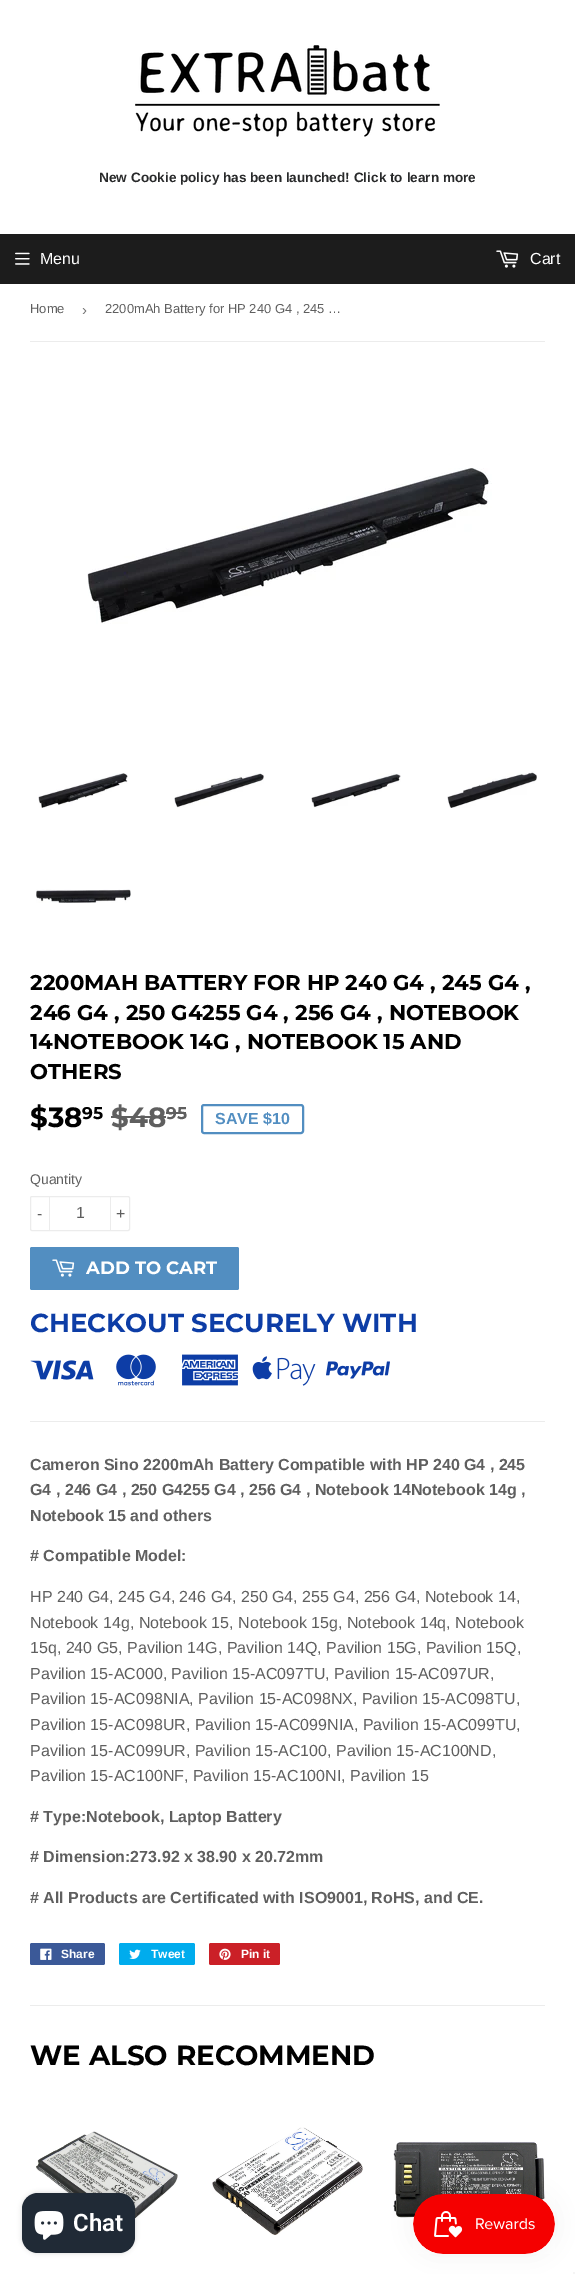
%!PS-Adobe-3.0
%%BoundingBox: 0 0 575 2274
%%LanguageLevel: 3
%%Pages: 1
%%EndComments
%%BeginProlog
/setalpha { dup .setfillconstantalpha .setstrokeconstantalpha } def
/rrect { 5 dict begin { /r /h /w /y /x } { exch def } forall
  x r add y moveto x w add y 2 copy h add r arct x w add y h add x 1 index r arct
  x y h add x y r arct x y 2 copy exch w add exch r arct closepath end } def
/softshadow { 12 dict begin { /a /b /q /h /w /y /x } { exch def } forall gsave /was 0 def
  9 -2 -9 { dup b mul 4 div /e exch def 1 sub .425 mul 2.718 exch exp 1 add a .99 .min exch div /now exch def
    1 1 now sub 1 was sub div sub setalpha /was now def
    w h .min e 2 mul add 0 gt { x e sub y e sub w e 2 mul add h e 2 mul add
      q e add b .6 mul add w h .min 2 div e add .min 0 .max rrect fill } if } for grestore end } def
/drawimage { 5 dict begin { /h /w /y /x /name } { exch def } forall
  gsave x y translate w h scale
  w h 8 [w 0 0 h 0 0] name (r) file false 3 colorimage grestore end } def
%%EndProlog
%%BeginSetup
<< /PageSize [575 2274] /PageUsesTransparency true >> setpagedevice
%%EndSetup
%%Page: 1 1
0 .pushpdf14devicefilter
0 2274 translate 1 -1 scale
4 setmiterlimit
1 setgray
0 0 575 2274 rectfill
(images/1.raw) 135 45 305 92 drawimage
0.11 setgray
0 234 575 50 rectfill
(images/2.raw) 15 252 15 13 drawimage
(images/3.raw) 496 250 23 18 drawimage
0.925 setgray
30 341 515 1 rectfill
(images/4.raw) 87 468 405 156 drawimage
(images/5.raw) 38 773 90 35 drawimage
(images/6.raw) 174 773 90 35 drawimage
(images/7.raw) 311 773 90 35 drawimage
(images/8.raw) 447 771 90 37 drawimage
(images/9.raw) 36 889 95 14 drawimage
0.373 setgray
111 1116 55 2 rectfill
166 1112 20 2 rectfill
0.322 0.557 0.757 setrgbcolor
2 setlinewidth
202 1105 101 28 2 rrect stroke
0.925 setgray
1 setlinewidth
30.5 1196.5 99 34 1.5 rrect stroke
49 1196 1 35 rectfill
110 1196 1 35 rectfill
0.322 0.557 0.757 setrgbcolor
30 1247 209 43 2 rrect fill
(images/10.raw) 52 1259 23 18 drawimage
(images/11.raw) 30 1360 64 20 drawimage
(images/12.raw) 116 1354 40 32 drawimage
(images/13.raw) 182 1354 56 32 drawimage
(images/14.raw) 252 1356 64 30 drawimage
(images/15.raw) 326 1361 64 18 drawimage
0.925 setgray
30 1421 515 1 rectfill
0.231 0.349 0.596 setrgbcolor
30 1943 75 22 2 rrect fill
(images/16.raw) 40 1948 12 12 drawimage
0 0.675 0.929 setrgbcolor
119 1943 76 22 2 rrect fill
(images/17.raw) 129 1949 12 10 drawimage
0.796 0.125 0.153 setrgbcolor
209 1943 71 22 2 rrect fill
(images/18.raw) 219 1948 12 12 drawimage
0.925 setgray
30 2005 515 1 rectfill
(images/19.raw) 36 2131 142 100 drawimage
(images/20.raw) 212 2127 151 108 drawimage
(images/21.raw) 393 2142 152 76 drawimage
0 setgray
22 2193 113 60 16 2.5 0.15 softshadow
0.125 0.165 0.212 setrgbcolor
22 2193 113 60 16 rrect fill
(images/22.raw) 34 2211 30 29 drawimage
0.961 setgray
573 2272 2 2 rectfill
0 setgray
413 2194 142 60 30 12.5 0.05 softshadow
(images/23.raw) 413 2194 142 60 drawimage
/LiberationSans-Bold [13.6 0 0 -13.6 0 0] selectfont
0.157 0.161 0.165 setrgbcolor
99 182 moveto (New Cookie policy has been launched! Click to learn more) show
/LiberationSans-Regular [16 0 0 -16 0 0] selectfont
1 setgray
40 264 moveto (Menu) show
530 264 moveto (Cart) show
/LiberationSans-Regular [13 0 0 -13 0 0] selectfont
0.373 setgray
30 313 moveto (Home) show
/LiberationSans-Regular [15 0 0 -15 0 0] selectfont
0.463 setgray
82 315 moveto (›) show
/LiberationSans-Regular [13 0 0 -13 0 0] selectfont
0.373 setgray
105 313 moveto (2200mAh Battery for HP 240 G4 , 245 …) show
/Montserrat-Thin [21.3 0 0 -21.3 0 0] selectfont
0 setgray
30 990 moveto (2200MAH BATTERY FOR HP 240 G4 , 245 G4 ,) show
30 1020 moveto (246 G4 , 250 G4255 G4 , 256 G4 , NOTEBOOK) show
30 1049 moveto (14NOTEBOOK 14G , NOTEBOOK 15 AND) show
30 1079 moveto (OTHERS) show
/Montserrat-Thin [27.75 0 0 -27.75 0 0] selectfont
30 1127 moveto ($38) show
/Montserrat-Thin [17 0 0 -17 0 0] selectfont
82 1119 moveto (95) show
/Montserrat-Thin [27.75 0 0 -27.75 0 0] selectfont
0.373 setgray
111 1127 moveto ($48) show
/Montserrat-Thin [17 0 0 -17 0 0] selectfont
166 1119 moveto (95) show
/LiberationSans-Bold [16 0 0 -16 0 0] selectfont
0.322 0.557 0.757 setrgbcolor
215 1124 moveto (SAVE $10) show
/LiberationSans-Regular [14 0 0 -14 0 0] selectfont
0.373 setgray
30 1184 moveto (Quantity) show
/LiberationSans-Regular [16 0 0 -16 0 0] selectfont
37 1219 moveto (-) show
76 1218 moveto (1) show
116 1219 moveto (+) show
/Montserrat-Thin [18 0 0 -18 0 0] selectfont
1 setgray
86 1274 moveto (ADD TO CART) show
/Montserrat-Thin [26 0 0 -26 0 0] selectfont
0.051 0.239 0.651 setrgbcolor
30 1332 moveto (CHECKOUT SECURELY WITH) show
/LiberationSans-Bold [16 0 0 -16 0 0] selectfont
0.373 setgray
30 1470 moveto (Cameron Sino 2200mAh Battery Compatible with HP 240 G4 , 245) show
30 1495 moveto (G4 , 246 G4 , 250 G4255 G4 , 256 G4 , Notebook 14Notebook 14g ,) show
30 1521 moveto (Notebook 15 and others) show
30 1561 moveto (# Compatible Model:) show
/LiberationSans-Regular [16 0 0 -16 0 0] selectfont
30 1602 moveto (HP 240 G4, 245 G4, 246 G4, 250 G4, 255 G4, 256 G4, Notebook 14,) show
30 1628 moveto (Notebook 14g, Notebook 15, Notebook 15g, Notebook 14q, Notebook) show
30 1653 moveto (15q, 240 G5, Pavilion 14G, Pavilion 14Q, Pavilion 15G, Pavilion 15Q,) show
30 1679 moveto (Pavilion 15-AC000, Pavilion 15-AC097TU, Pavilion 15-AC097UR,) show
30 1704 moveto (Pavilion 15-AC098NIA, Pavilion 15-AC098NX, Pavilion 15-AC098TU,) show
30 1730 moveto (Pavilion 15-AC098UR, Pavilion 15-AC099NIA, Pavilion 15-AC099TU,) show
30 1756 moveto (Pavilion 15-AC099UR, Pavilion 15-AC100, Pavilion 15-AC100ND,) show
30 1781 moveto (Pavilion 15-AC100NF, Pavilion 15-AC100NI, Pavilion 15) show
/LiberationSans-Bold [16 0 0 -16 0 0] selectfont
30 1822 moveto (# Type:Notebook, Laptop Battery) show
30 1862 moveto (# Dimension:273.92 x 38.90 x 20.72mm) show
30 1903 moveto (# All Products are Certificated with ISO9001, RoHS, and CE.) show
/LiberationSans-Bold [12 0 0 -12 0 0] selectfont
1 setgray
61 1958 moveto (Share) show
151 1958 moveto (Tweet) show
241 1958 moveto (Pin it) show
/Montserrat-Thin [27.75 0 0 -27.75 0 0] selectfont
0 setgray
30 2065 moveto (WE ALSO RECOMMEND) show
/Roboto-SemiBold [24 0 0 -24 0 0] selectfont
1 setgray
73 2231 moveto (Chat) show
.poppdf14devicefilter showpage
%%EOF
